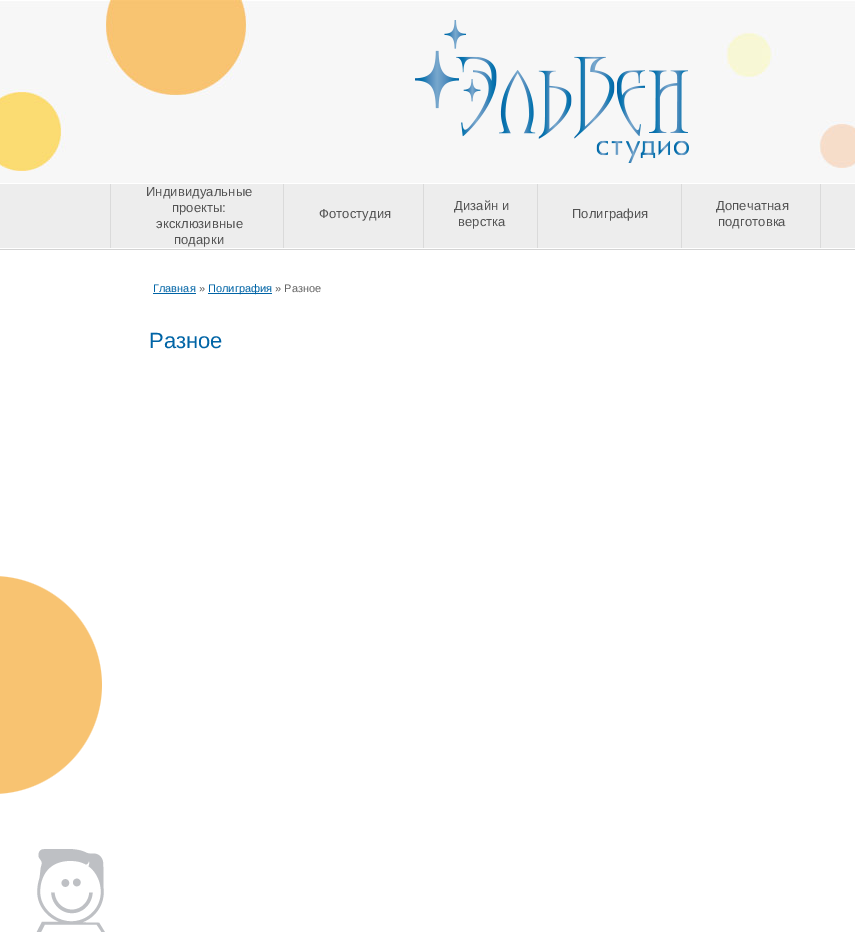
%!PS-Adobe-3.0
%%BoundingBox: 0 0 855 932
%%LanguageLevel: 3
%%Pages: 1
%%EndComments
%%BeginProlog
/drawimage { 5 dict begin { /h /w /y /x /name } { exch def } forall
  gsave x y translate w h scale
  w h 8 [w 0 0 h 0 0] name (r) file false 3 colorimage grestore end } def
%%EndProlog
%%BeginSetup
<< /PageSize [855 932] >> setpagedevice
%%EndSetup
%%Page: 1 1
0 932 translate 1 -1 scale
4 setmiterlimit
1 setgray
0 0 855 932 rectfill
0.969 setgray
0 171 855 12 rectfill
(images/1.raw) 0 0 855 171 drawimage
(images/2.raw) 415 20 274 143 drawimage
0.929 setgray
0 184 855 64 rectfill
0.855 setgray
283 184 1 64 rectfill
110 184 1 64 rectfill
423 184 1 64 rectfill
537 184 1 64 rectfill
681 184 1 64 rectfill
820 184 1 64 rectfill
0.827 setgray
0 249 855 1 rectfill
0 0.392 0.651 setrgbcolor
153 293 43 1 rectfill
208 293 64 1 rectfill
(images/3.raw) 0 576 102 218 drawimage
(images/4.raw) 36 849 69 83 drawimage
/LiberationSans-Regular [13 0 0 -13 0 0] selectfont
0.325 setgray
146 196 moveto 0.1 0 (Индивидуальные) ashow
172 212 moveto 0.1 0 (проекты:) ashow
156 228 moveto 0.1 0 (эксклюзивные) ashow
174 244 moveto 0.1 0 (подарки) ashow
319 218 moveto 0.1 0 (Фотостудия) ashow
454 210 moveto 0.1 0 (Дизайн и) ashow
458 226 moveto 0.1 0 (верстка) ashow
572 218 moveto 0.1 0 (Полиграфия) ashow
716 210 moveto 0.1 0 (Допечатная) ashow
718 226 moveto 0.1 0 (подготовка) ashow
/LiberationSans-Regular [11 0 0 -11 0 0] selectfont
0 0.392 0.651 setrgbcolor
153 292 moveto (Главная) show
0.388 setgray
199 292 moveto (») show
0 0.392 0.651 setrgbcolor
208 292 moveto (Полиграфия) show
0.388 setgray
275 292 moveto (» Разное) show
/LiberationSans-Regular [22 0 0 -22 0 0] selectfont
0 0.392 0.651 setrgbcolor
149 348 moveto (Разное) show
showpage
%%EOF
